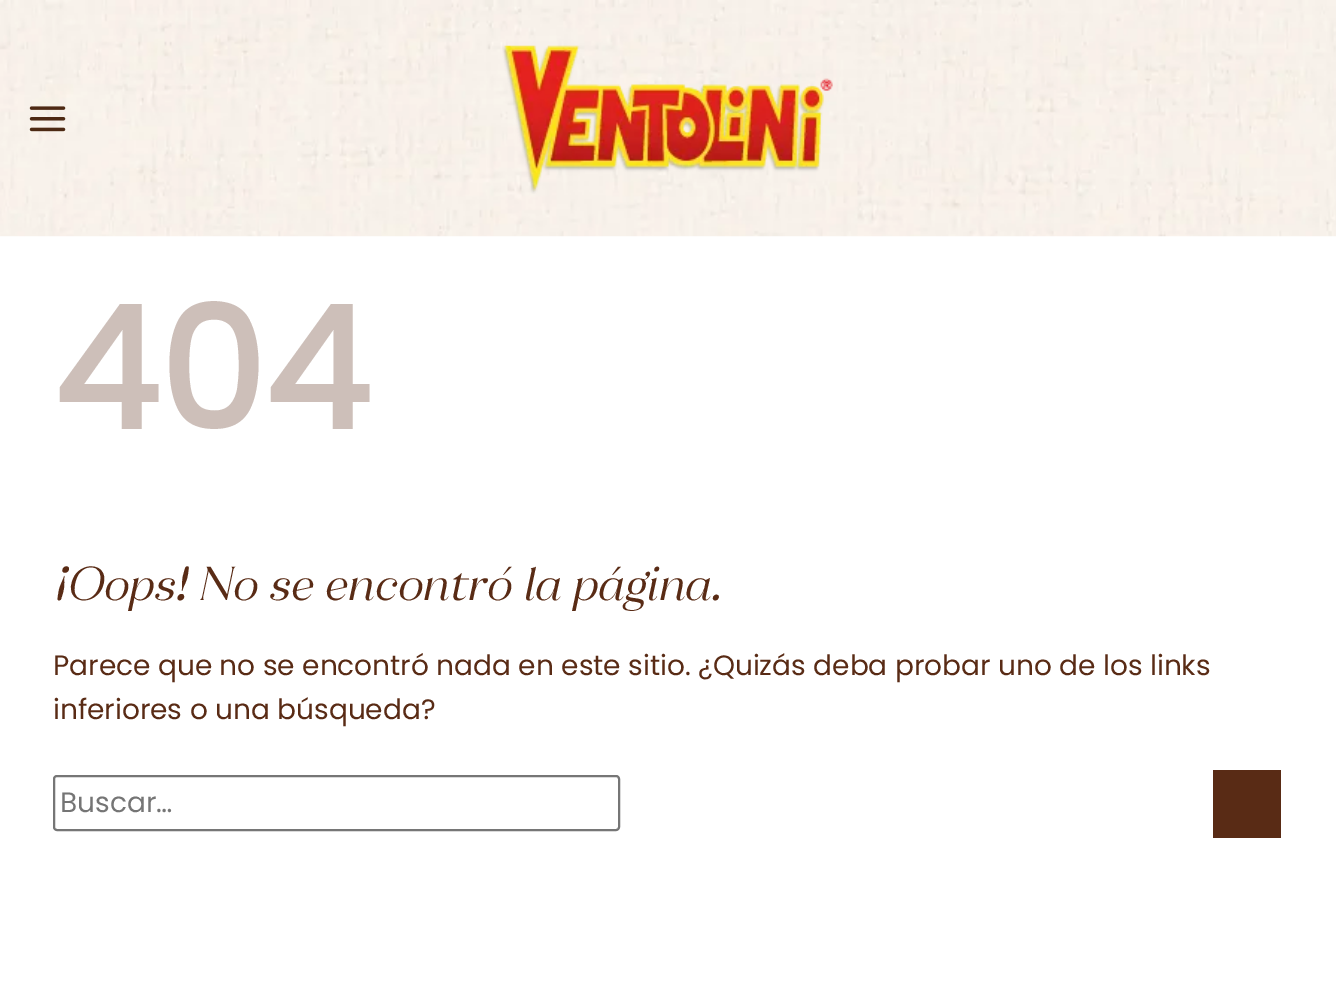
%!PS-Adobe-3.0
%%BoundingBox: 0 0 1336 1002
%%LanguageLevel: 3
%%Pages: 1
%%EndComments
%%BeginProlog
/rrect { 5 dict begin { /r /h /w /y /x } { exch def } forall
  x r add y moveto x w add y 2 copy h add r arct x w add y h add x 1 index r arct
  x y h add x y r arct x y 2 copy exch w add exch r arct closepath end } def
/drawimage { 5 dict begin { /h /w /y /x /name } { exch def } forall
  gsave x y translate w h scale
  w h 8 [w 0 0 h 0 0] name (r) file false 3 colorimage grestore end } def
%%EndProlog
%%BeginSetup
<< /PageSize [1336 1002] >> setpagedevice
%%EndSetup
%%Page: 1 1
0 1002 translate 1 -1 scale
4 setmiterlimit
1 setgray
0 0 1336 1002 rectfill
(images/1.raw) 0 0 1336 237 drawimage
(images/2.raw) 29 106 37 26 drawimage
(images/3.raw) 502 45 331 149 drawimage
0.463 setgray
2 setlinewidth
54 776 565 54 3 rrect stroke
0.349 0.169 0.082 setrgbcolor
1213 770 68 68 rectfill
/Poppins-Bold [168 0 0 -168 0 0] selectfont
0.804 0.749 0.725 setrgbcolor
53 429 moveto (404) show
/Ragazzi-Medium [47.6 0 0 -47.6 0 0] selectfont
0.349 0.169 0.082 setrgbcolor
53 600 moveto (¡Oops! No se encontró la página.) show
/Poppins-Regular [28 0 0 -28 0 0] selectfont
53 675 moveto (Parece que no se encontró nada en este sitio. ¿Quizás deba probar uno de los links) show
53 719 moveto (inferiores o una búsqueda?) show
0.459 setgray
60 812 moveto (Buscar…) show
showpage
%%EOF
